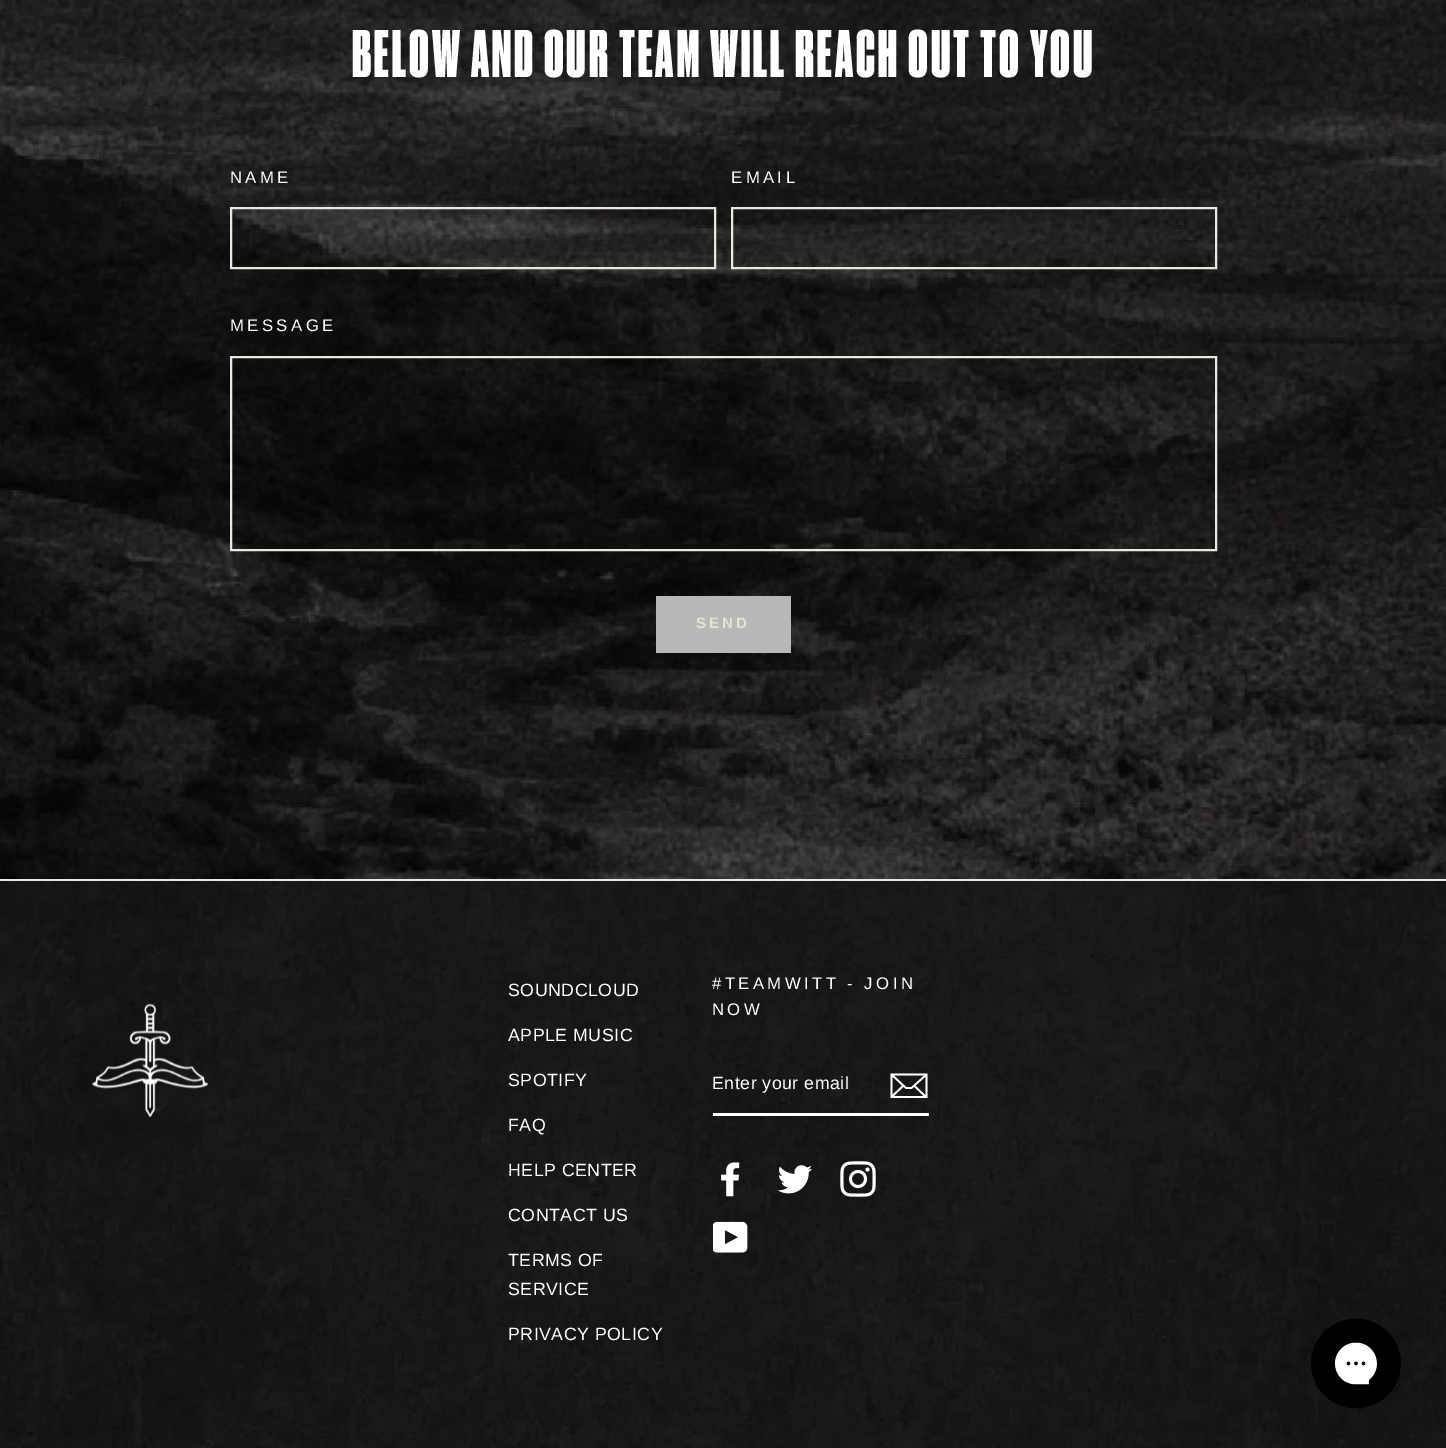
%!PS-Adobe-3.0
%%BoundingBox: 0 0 1446 1448
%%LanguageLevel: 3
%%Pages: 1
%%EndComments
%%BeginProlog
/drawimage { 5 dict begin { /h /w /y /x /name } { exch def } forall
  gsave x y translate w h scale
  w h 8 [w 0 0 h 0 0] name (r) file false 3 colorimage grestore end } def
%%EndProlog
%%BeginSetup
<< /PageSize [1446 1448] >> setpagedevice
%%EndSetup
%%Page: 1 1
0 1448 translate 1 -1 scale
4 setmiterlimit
1 setgray
0 0 1446 1448 rectfill
(images/1.raw) 0 0 1446 879 drawimage
0.91 0.91 0.882 setrgbcolor
2 setlinewidth
231 208 484 60 rectstroke
732 208 484 60 rectstroke
231 357 985 193 rectstroke
0.722 setgray
656 596 135 57 rectfill
(images/2.raw) 0 881 1446 567 drawimage
0.91 0.91 0.882 setrgbcolor
0 879 1446 2 rectfill
(images/3.raw) 92 1003 116 115 drawimage
1 setgray
713 1113 216 3 rectfill
1.7 setlinewidth
newpath 926.5 1097 moveto 891.5 1097 lineto 891.5 1074.5 lineto 926.5 1074.5 lineto closepath 891.5 1074.5 moveto 906 1088 lineto 911.5 1088 lineto 926.5 1074.5 lineto 903.5 1085.5 moveto 892 1096.5 lineto 926 1097 moveto 914 1085.5 lineto stroke
(images/4.raw) 721 1162 19 35 drawimage
(images/5.raw) 777 1165 35 29 drawimage
(images/6.raw) 840 1161 36 36 drawimage
(images/7.raw) 713 1221 35 32 drawimage
(images/8.raw) 1311 1318 90 91 drawimage
/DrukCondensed-Black [63.25 0 0 -63.25 0 0] selectfont
352 77 moveto 3 0 (BELOW AND OUR TEAM WILL REACH OUT TO YOU) ashow
/LiberationSans-Regular [16.75 0 0 -16.75 0 0] selectfont
230 183 moveto 3.4 0 (NAME) ashow
731 183 moveto 3.4 0 (EMAIL) ashow
230 331 moveto 3.4 0 (MESSAGE) ashow
/LiberationSans-Bold [15 0 0 -15 0 0] selectfont
0.914 0.89 0.82 setrgbcolor
696 628 moveto 3 0 (SEND) ashow
/LiberationSans-Regular [17.75 0 0 -17.75 0 0] selectfont
1 setgray
508 996 moveto 0.5 0 (SOUNDCLOUD) ashow
508 1041 moveto 0.5 0 (APPLE MUSIC) ashow
508 1086 moveto 0.5 0 (SPOTIFY) ashow
508 1131 moveto 0.5 0 (FAQ) ashow
508 1176 moveto 0.5 0 (HELP CENTER) ashow
508 1221 moveto 0.5 0 (CONTACT US) ashow
508 1266 moveto 0.5 0 (TERMS OF) ashow
508 1295 moveto 0.5 0 (SERVICE) ashow
508 1340 moveto 0.5 0 (PRIVACY POLICY) ashow
/LiberationSans-Regular [16.75 0 0 -16.75 0 0] selectfont
712 989 moveto 3.4 0 (#TEAMWITT - JOIN) ashow
712 1015 moveto 3.4 0 (NOW) ashow
/LiberationSans-Regular [17.75 0 0 -17.75 0 0] selectfont
712 1089 moveto 0.5 0 (Enter your email) ashow
showpage
%%EOF
